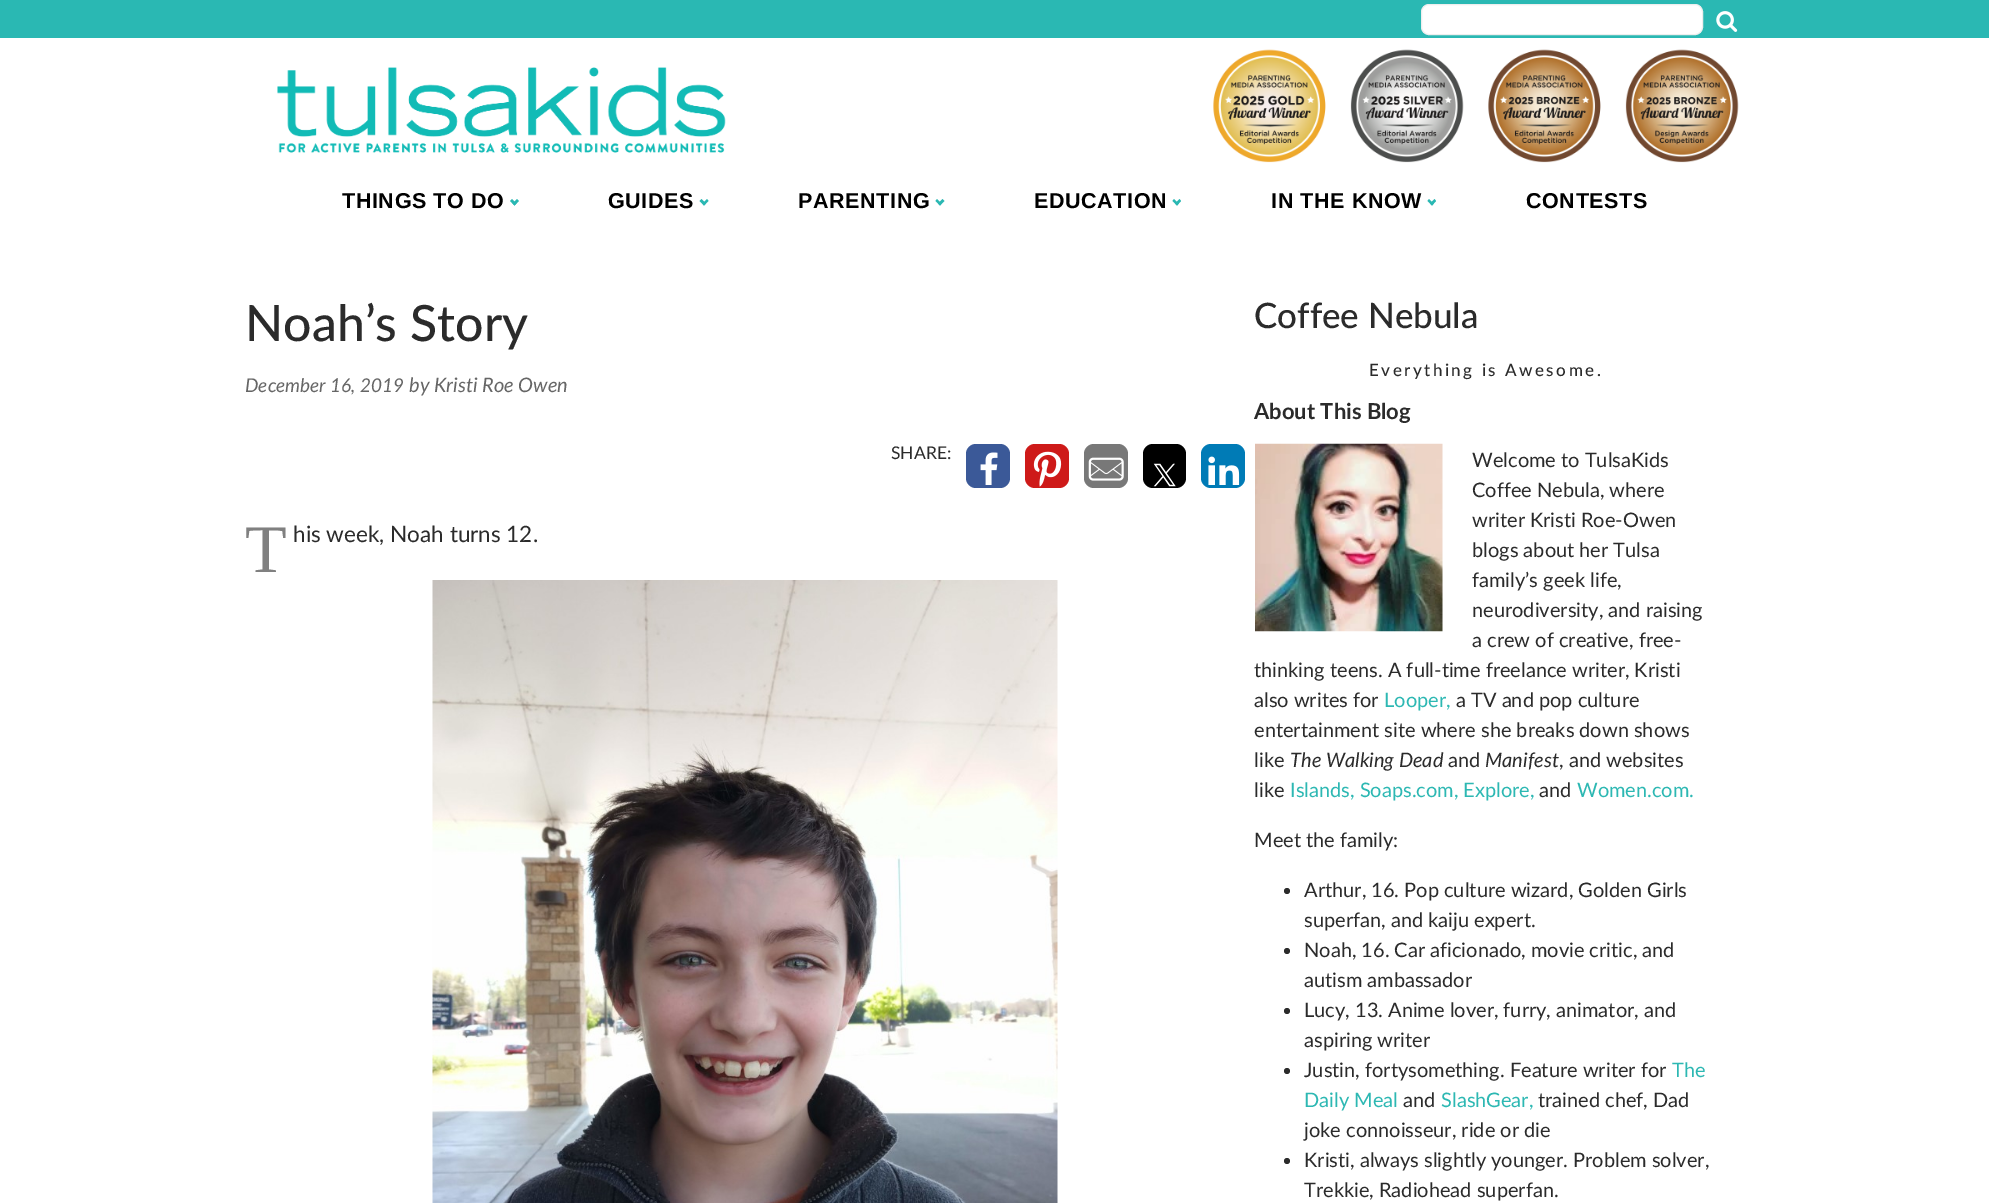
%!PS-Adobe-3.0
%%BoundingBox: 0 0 1989 1203
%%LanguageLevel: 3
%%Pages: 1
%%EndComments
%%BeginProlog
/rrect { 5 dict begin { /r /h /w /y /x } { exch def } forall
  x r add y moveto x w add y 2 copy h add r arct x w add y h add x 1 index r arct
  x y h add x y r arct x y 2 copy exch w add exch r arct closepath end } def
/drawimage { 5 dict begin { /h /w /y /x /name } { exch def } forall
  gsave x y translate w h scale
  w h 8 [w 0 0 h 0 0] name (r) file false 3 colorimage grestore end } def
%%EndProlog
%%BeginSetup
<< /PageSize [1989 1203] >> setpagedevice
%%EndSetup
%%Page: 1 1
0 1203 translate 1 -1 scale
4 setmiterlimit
1 setgray
0 0 1989 1203 rectfill
0.165 0.722 0.702 setrgbcolor
0 0 1989 38 rectfill
1 setgray
1421.5 4.5 281 30 7.5 rrect gsave fill grestore
0.933 setgray
stroke
(images/1.raw) 1716 11 22 21 drawimage
(images/2.raw) 277 67 449 86 drawimage
(images/3.raw) 1213 49 113 114 drawimage
(images/4.raw) 1350 49 114 114 drawimage
(images/5.raw) 1488 49 113 114 drawimage
(images/6.raw) 1625 49 114 114 drawimage
0.165 0.722 0.702 setrgbcolor
newpath 519 201 moveto 514.5 205.5 lineto 512.5 203.5 lineto 517 199 lineto closepath fill
newpath 516.5 203.5 moveto 514.5 205.5 lineto 510 201 lineto 512 199 lineto closepath fill
newpath 708.5 201 moveto 704 205.5 lineto 702.5 203.5 lineto 707 199 lineto closepath fill
newpath 706 203.5 moveto 704 205.5 lineto 699.5 201 lineto 701.5 199 lineto closepath fill
newpath 944.5 201 moveto 940 205.5 lineto 938 203.5 lineto 942.5 199 lineto closepath fill
newpath 941.5 203.5 moveto 940 205.5 lineto 935.5 201 lineto 937 199 lineto closepath fill
newpath 1181 201 moveto 1177 205.5 lineto 1175 203.5 lineto 1179.5 199 lineto closepath fill
newpath 1178.5 203.5 moveto 1177 205.5 lineto 1172.5 201 lineto 1174 199 lineto closepath fill
newpath 1436 201 moveto 1432 205.5 lineto 1430 203.5 lineto 1434.5 199 lineto closepath fill
newpath 1433.5 203.5 moveto 1432 205.5 lineto 1427.5 201 lineto 1429 199 lineto closepath fill
0.231 0.349 0.596 setrgbcolor
966 444 44 44 10 rrect fill
(images/7.raw) 980 452 18 33 drawimage
0.808 0.102 0.098 setrgbcolor
1025 444 44 44 10 rrect fill
(images/8.raw) 1033 451 29 36 drawimage
0.471 setgray
1084 444 44 44 10 rrect fill
(images/9.raw) 1088 457 36 24 drawimage
0 setgray
1143 444 43 44 10 rrect fill
(images/10.raw) 1153 463 23 24 drawimage
0 0.482 0.714 setrgbcolor
1201 444 44 44 10 rrect fill
(images/11.raw) 1208 456 32 29 drawimage
(images/12.raw) 432 580 626 623 drawimage
(images/13.raw) 1255 443 188 189 drawimage
0.169 setgray
newpath 1287 891 3 0 360 arc closepath fill
newpath 1287 951 3 0 360 arc closepath fill
newpath 1287 1011 3 0 360 arc closepath fill
newpath 1287 1071 3 0 360 arc closepath fill
newpath 1287 1161 3 0 360 arc closepath fill
/LiberationSans-Bold [21.5 0 0 -21.5 0 0] selectfont
0 setgray
342 208 moveto 0.6 0 (THINGS TO DO) ashow
608 208 moveto 0.6 0 (GUIDES) ashow
798 208 moveto 0.6 0 (PARENTING) ashow
1034 208 moveto 0.6 0 (EDUCATION) ashow
1271 208 moveto 0.6 0 (IN THE KNOW) ashow
1526 208 moveto 0.6 0 (CONTESTS) ashow
/Lato-Medium [50 0 0 -50 0 0] selectfont
0.169 setgray
245 341 moveto (Noah’s Story) show
/Lato-Italic [19 0 0 -19 0 0] selectfont
0.4 setgray
245 392 moveto (December 16, 2019) show
/Lato-Italic [20 0 0 -20 0 0] selectfont
409 392 moveto (by Kristi Roe Owen) show
/Lato-Regular [17.5 0 0 -17.5 0 0] selectfont
0.169 setgray
891 459 moveto (SHARE:) show
/LiberationSerif-Regular [68 0 0 -68 0 0] selectfont
0.502 setgray
245 572 moveto (T) show
/Lato-Regular [22.5 0 0 -22.5 0 0] selectfont
0.169 setgray
293 542 moveto (his week, Noah turns 12.) show
/Lato-Medium [35 0 0 -35 0 0] selectfont
1254 328 moveto (Coffee Nebula) show
/Lato-Medium [17 0 0 -17 0 0] selectfont
1369 376 moveto 2.5 0 (Everything is Awesome.) ashow
/Lato-Bold [22 0 0 -22 0 0] selectfont
1254 419 moveto (About This Blog) show
/Lato-Regular [20 0 0 -20 0 0] selectfont
1472 467 moveto (Welcome to TulsaKids) show
1472 497 moveto (Coffee Nebula, where) show
1472 527 moveto (writer Kristi Roe-Owen) show
1472 557 moveto (blogs about her Tulsa) show
1472 587 moveto (family’s geek life,) show
1472 617 moveto (neurodiversity, and raising) show
1472 647 moveto (a crew of creative, free-) show
1254 677 moveto (thinking teens. A full-time freelance writer, Kristi) show
1254 707 moveto (also writes for) show
0.176 0.722 0.702 setrgbcolor
1384 707 moveto (Looper,) show
0.169 setgray
1456 707 moveto (a TV and pop culture) show
1254 737 moveto (entertainment site where she breaks down shows) show
1254 767 moveto (like) show
/Lato-Italic [20 0 0 -20 0 0] selectfont
1290 767 moveto (The Walking Dead) show
/Lato-Regular [20 0 0 -20 0 0] selectfont
1448 767 moveto (and) show
/Lato-Italic [20 0 0 -20 0 0] selectfont
1485 767 moveto (Manifest) show
/Lato-Regular [20 0 0 -20 0 0] selectfont
1559 767 moveto (, and websites) show
1254 797 moveto (like) show
0.176 0.722 0.702 setrgbcolor
1290 797 moveto (Islands, Soaps.com, Explore,) show
0.169 setgray
1539 797 moveto (and) show
0.176 0.722 0.702 setrgbcolor
1577 797 moveto (Women.com.) show
0.169 setgray
1254 847 moveto (Meet the family:) show
1304 897 moveto (Arthur, 16. Pop culture wizard, Golden Girls) show
1304 927 moveto (superfan, and kaiju expert.) show
1304 957 moveto (Noah, 16. Car aficionado, movie critic, and) show
1304 987 moveto (autism ambassador) show
1304 1017 moveto (Lucy, 13. Anime lover, furry, animator, and) show
1304 1047 moveto (aspiring writer) show
1304 1077 moveto (Justin, fortysomething. Feature writer for) show
0.176 0.722 0.702 setrgbcolor
1672 1077 moveto (The) show
1304 1107 moveto (Daily Meal) show
0.169 setgray
1403 1107 moveto (and) show
0.176 0.722 0.702 setrgbcolor
1441 1107 moveto (SlashGear,) show
0.169 setgray
1538 1107 moveto (trained chef, Dad) show
1304 1137 moveto (joke connoisseur, ride or die) show
1304 1167 moveto (Kristi, always slightly younger. Problem solver,) show
1304 1197 moveto (Trekkie, Radiohead superfan.) show
showpage
%%EOF
